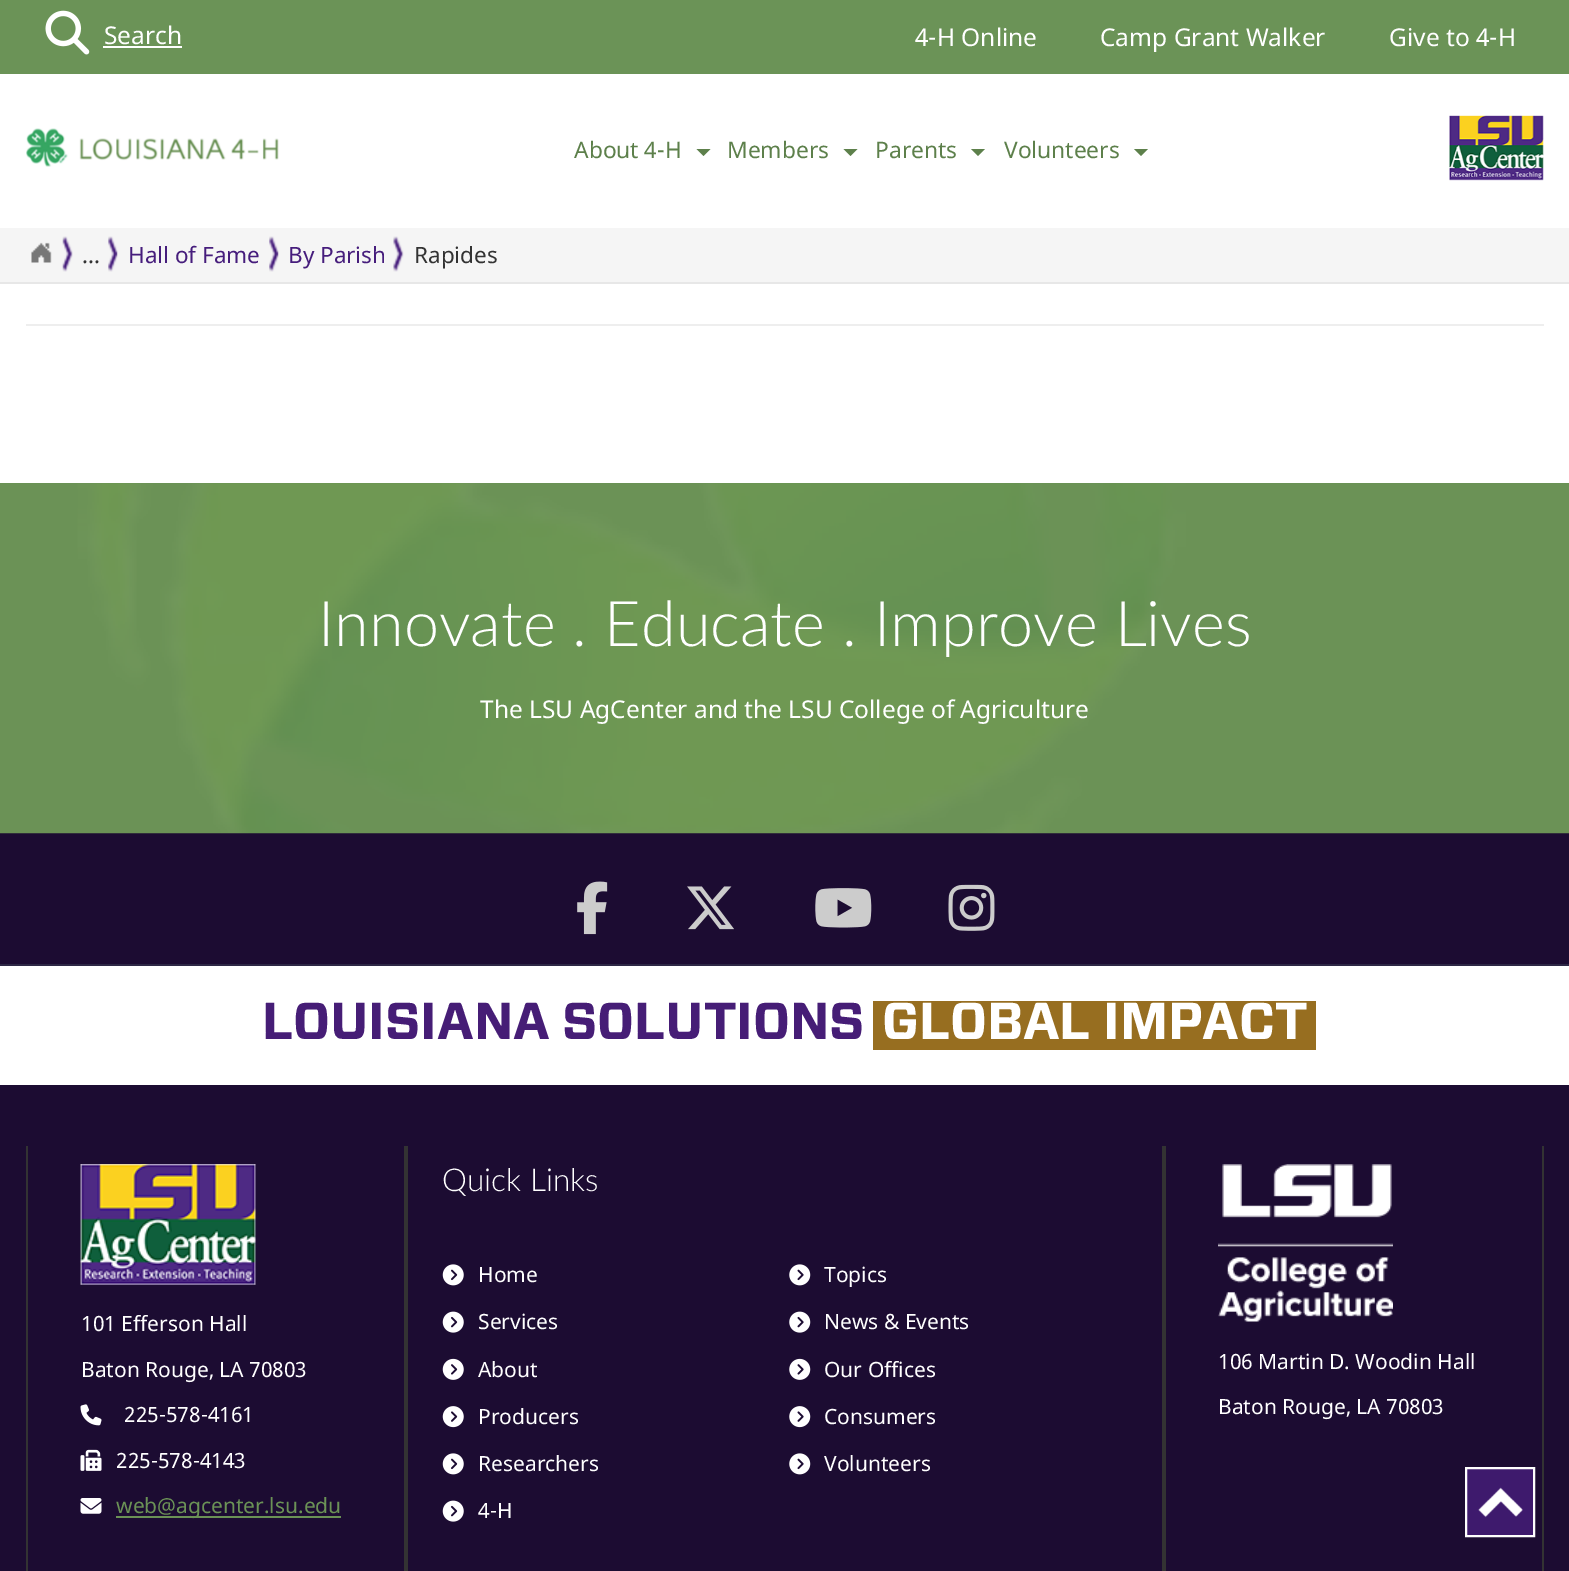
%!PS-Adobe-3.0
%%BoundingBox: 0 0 1569 1571
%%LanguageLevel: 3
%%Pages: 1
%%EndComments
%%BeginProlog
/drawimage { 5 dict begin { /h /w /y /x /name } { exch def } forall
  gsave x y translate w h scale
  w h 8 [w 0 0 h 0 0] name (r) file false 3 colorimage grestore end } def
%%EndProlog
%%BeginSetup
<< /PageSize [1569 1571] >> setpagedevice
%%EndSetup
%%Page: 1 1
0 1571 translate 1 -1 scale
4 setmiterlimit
1 setgray
0 0 1569 1571 rectfill
0.906 setgray
0 282 1569 2 rectfill
0.42 0.576 0.341 setrgbcolor
0 0 1569 74 rectfill
(images/1.raw) 45 10 45 45 drawimage
1 setgray
103 46 79 2 rectfill
(images/2.raw) 26 128 253 39 drawimage
0.365 0.502 0.294 setrgbcolor
newpath 696.5 149 moveto 710.5 149 lineto 703.5 156 lineto closepath fill
newpath 843.5 149 moveto 857.5 149 lineto 850.5 156 lineto closepath fill
newpath 971 149 moveto 985 149 lineto 978 156 lineto closepath fill
newpath 1134 149 moveto 1148 149 lineto 1141 156 lineto closepath fill
(images/3.raw) 1449 115 95 66 drawimage
0.961 setgray
0 228 1569 54 rectfill
(images/4.raw) 62 236 11 36 drawimage
(images/5.raw) 31 242 21 21 drawimage
(images/6.raw) 108 236 10 36 drawimage
(images/7.raw) 269 236 10 36 drawimage
(images/8.raw) 393 236 11 36 drawimage
0.933 setgray
26 324 1518 2 rectfill
0.11 0.047 0.196 setrgbcolor
0 483 1569 1088 rectfill
(images/9.raw) 0 483 1569 351 drawimage
0.176 0.153 0.271 setrgbcolor
0 964 1569 2 rectfill
(images/10.raw) 577 881 31 54 drawimage
(images/11.raw) 687 886 47 44 drawimage
(images/12.raw) 815 888 57 40 drawimage
(images/13.raw) 948 884 47 47 drawimage
1 setgray
0 966 1569 119 rectfill
0.592 0.431 0.125 setrgbcolor
873 1001 443 49 rectfill
0.2 setgray
404 1146 4 425 rectfill
26 1146 2 425 rectfill
(images/14.raw) 80 1164 176 121 drawimage
(images/15.raw) 80 1404 22 22 drawimage
(images/16.raw) 80 1449 22 22 drawimage
(images/17.raw) 80 1498 22 16 drawimage
0.42 0.573 0.337 setrgbcolor
116 1516 225 2 rectfill
0.2 setgray
1162 1146 4 425 rectfill
(images/18.raw) 442 1264 22 22 drawimage
(images/19.raw) 789 1264 22 22 drawimage
(images/20.raw) 442 1311 22 22 drawimage
(images/21.raw) 789 1311 22 22 drawimage
(images/22.raw) 442 1358 22 22 drawimage
(images/23.raw) 789 1358 22 22 drawimage
(images/24.raw) 442 1406 22 22 drawimage
(images/25.raw) 789 1406 22 22 drawimage
(images/18.raw) 442 1453 22 22 drawimage
(images/19.raw) 789 1453 22 22 drawimage
(images/20.raw) 442 1500 22 22 drawimage
1542 1146 2 425 rectfill
(images/26.raw) 1218 1164 175 158 drawimage
0.243 0.102 0.427 setrgbcolor
1467 1469 66 66 rectfill
(images/27.raw) 1478 1487 45 31 drawimage
1 setgray
2 setlinewidth
1466 1468 68 68 rectstroke
/NotoSans-Regular [24.5 0 0 -24.5 0 0] selectfont
104 44 moveto (Search) show
915 46 moveto (4-H Online) show
1100 46 moveto (Camp Grant Walker) show
1389 46 moveto (Give to 4-H) show
/NotoSans-Regular [22.75 0 0 -22.75 0 0] selectfont
0.365 0.502 0.294 setrgbcolor
574 158 moveto (About 4-H) show
727 158 moveto (Members) show
875 158 moveto (Parents) show
1004 158 moveto (Volunteers) show
/NotoSans-Regular [22.5 0 0 -22.5 0 0] selectfont
0.2 setgray
82 263 moveto (...) show
0.275 0.114 0.486 setrgbcolor
128 263 moveto (Hall of Fame) show
288 263 moveto (By Parish) show
0.2 setgray
414 263 moveto (Rapides) show
/Lato-Light [63 0 0 -63 0 0] selectfont
1 setgray
318 646 moveto (Innovate . Educate . Improve Lives) show
/NotoSans-Regular [24.5 0 0 -24.5 0 0] selectfont
480 718 moveto (The LSU AgCenter and the LSU College of Agriculture) show
/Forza-Bold [51.75 0 0 -51.75 0 0] selectfont
0.275 0.114 0.463 setrgbcolor
262 1039 moveto (LOUISIANA SOLUTIONS) show
1 setgray
882 1039 moveto (GLOBAL IMPACT) show
/NotoSans-Regular [21 0 0 -21 0 0] selectfont
81 1331 moveto (101 Efferson Hall) show
81 1377 moveto (Baton Rouge, LA 70803) show
124 1422 moveto (225-578-4161) show
116 1468 moveto (225-578-4143) show
0.42 0.573 0.337 setrgbcolor
116 1513 moveto (web@agcenter.lsu.edu) show
/Lato-Light [31.5 0 0 -31.5 0 0] selectfont
1 setgray
442 1191 moveto (Quick Links) show
/NotoSans-Regular [21 0 0 -21 0 0] selectfont
478 1282 moveto (Home) show
824 1282 moveto (Topics) show
478 1329 moveto (Services) show
824 1329 moveto (News & Events) show
478 1377 moveto (About) show
824 1377 moveto (Our Offices) show
478 1424 moveto (Producers) show
824 1424 moveto (Consumers) show
478 1471 moveto (Researchers) show
824 1471 moveto (Volunteers) show
478 1518 moveto (4-H) show
1218 1369 moveto (106 Martin D. Woodin Hall) show
1218 1414 moveto (Baton Rouge, LA 70803) show
showpage
%%EOF
